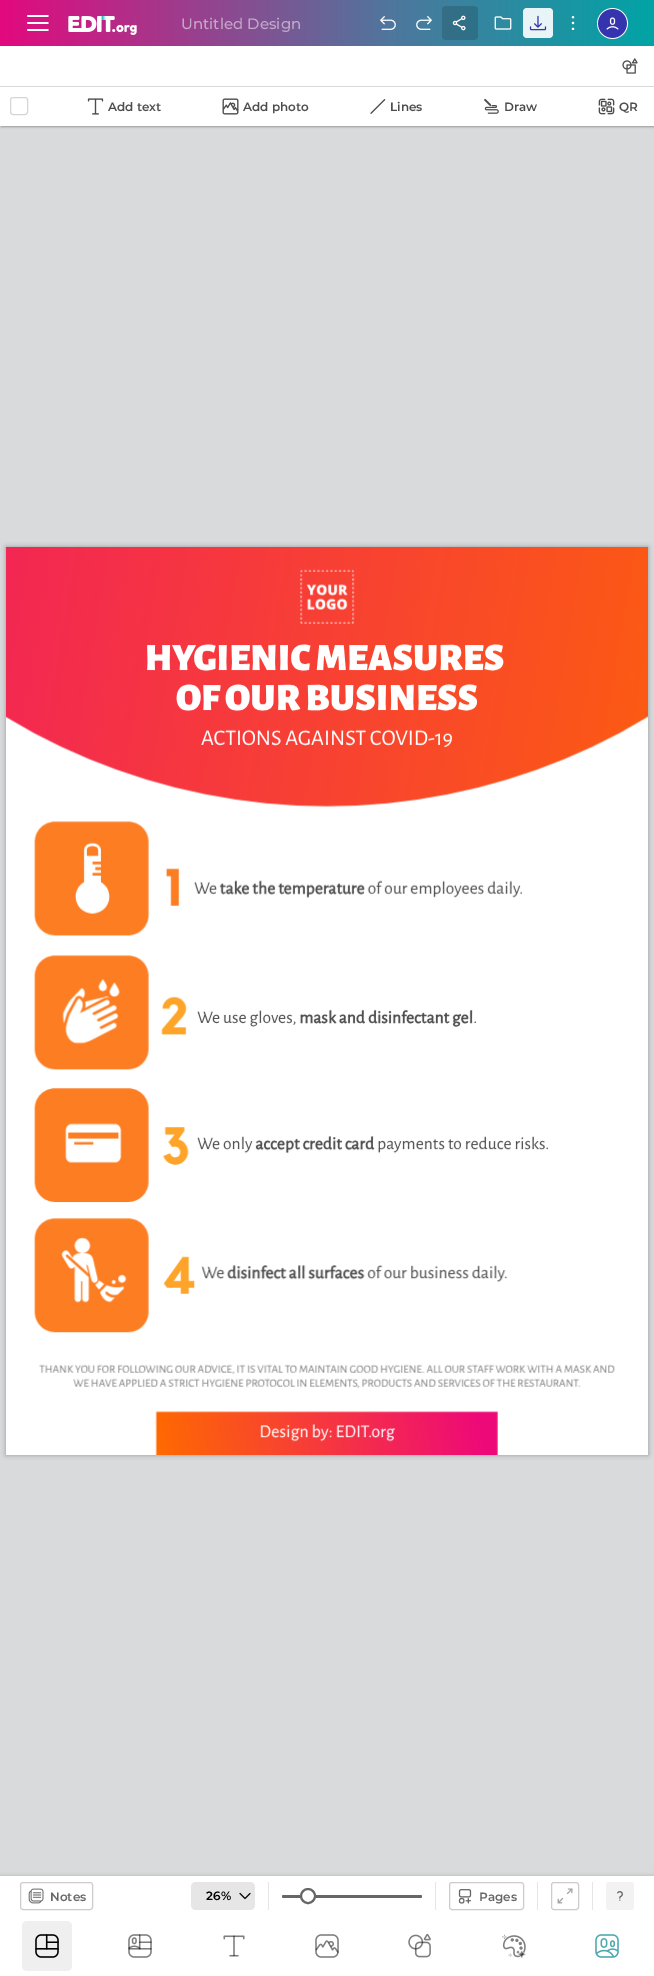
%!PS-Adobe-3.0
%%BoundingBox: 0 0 654 1976
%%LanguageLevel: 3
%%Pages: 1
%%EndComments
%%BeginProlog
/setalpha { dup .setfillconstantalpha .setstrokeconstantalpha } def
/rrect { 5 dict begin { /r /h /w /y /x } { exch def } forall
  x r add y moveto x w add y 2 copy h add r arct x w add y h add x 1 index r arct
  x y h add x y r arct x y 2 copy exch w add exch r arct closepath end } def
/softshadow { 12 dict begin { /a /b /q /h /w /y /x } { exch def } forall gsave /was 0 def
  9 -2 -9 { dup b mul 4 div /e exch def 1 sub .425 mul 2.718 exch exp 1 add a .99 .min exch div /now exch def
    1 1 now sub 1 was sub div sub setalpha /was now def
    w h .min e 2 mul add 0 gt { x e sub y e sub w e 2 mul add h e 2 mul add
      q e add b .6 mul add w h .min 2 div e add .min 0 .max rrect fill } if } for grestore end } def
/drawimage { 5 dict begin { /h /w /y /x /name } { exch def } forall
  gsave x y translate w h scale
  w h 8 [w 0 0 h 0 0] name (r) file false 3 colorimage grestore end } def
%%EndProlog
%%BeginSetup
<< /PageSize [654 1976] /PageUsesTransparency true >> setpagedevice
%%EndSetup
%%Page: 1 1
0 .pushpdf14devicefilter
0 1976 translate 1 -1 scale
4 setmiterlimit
0.847 0.855 0.859 setrgbcolor
0 0 654 1976 rectfill
0 setgray
1 47 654 80 0 1 0.3 softshadow
gsave newpath 0 0 moveto 654 0 lineto 654 46 lineto 0 46 lineto closepath clip newpath
<< /ShadingType 2 /ColorSpace /DeviceRGB /Coords [0 23 654 23] /Extend [true true] /Function << /FunctionType 3 /Domain [0 1] /Functions [<< /FunctionType 2 /Domain [0 1] /C0 [0.89 0.035 0.494] /C1 [0.306 0.467 0.616] /N 1 >> << /FunctionType 2 /Domain [0 1] /C0 [0.306 0.467 0.616] /C1 [0 0.643 0.651] /N 1 >>] /Bounds [0.6] /Encode [0 1 0 1] >> >> shfill grestore
(images/1.raw) 27 15 22 16 drawimage
(images/2.raw) 68 16 69 19 drawimage
(images/3.raw) 380 16 16 14 drawimage
(images/4.raw) 416 16 16 14 drawimage
0.15 setalpha
442 6 36 34 4 rrect fill
1 setalpha
(images/5.raw) 452 15 14 16 drawimage
(images/6.raw) 494 16 18 14 drawimage
0.9 setalpha
1 setgray
523 8 30 30 4 rrect fill
1 setalpha
(images/7.raw) 529 15 18 16 drawimage
newpath 573 17.2 1.1 0 360 arc closepath fill
newpath 573 23 1.1 0 360 arc closepath fill
newpath 573 28.9 1.1 0 360 arc closepath fill
(images/8.raw) 597 8 31 31 drawimage
0 46 654 80 rectfill
(images/9.raw) 622 58 16 16 drawimage
0.851 setgray
0 86 654 1 rectfill
0.839 0.831 0.831 setrgbcolor
10.5 97.5 17 17 2.5 rrect stroke
(images/10.raw) 87 98 17 17 drawimage
(images/11.raw) 222 98 17 17 drawimage
(images/12.raw) 370 99 16 15 drawimage
(images/13.raw) 484 98 15 16 drawimage
(images/14.raw) 598 98 17 17 drawimage
0 setgray
6 547 642 908 0 2.5 0.3 softshadow
(images/15.raw) 6 547 642 908 drawimage
0 1876 654 40 0 2 0.16 softshadow
1 setgray
0 1876 654 100 rectfill
0.8 setgray
20.5 1882.5 72 27 2.5 rrect stroke
(images/16.raw) 28 1888 16 16 drawimage
0.902 setgray
268 1882 1 28 rectfill
191 1882 64 28 5 rrect fill
(images/17.raw) 239 1892 12 8 drawimage
0.4 setgray
282 1895 140 3 1.5 rrect fill
1 setgray
newpath 308 1896 7 0 360 arc closepath gsave fill grestore
0.4 setgray
2 setlinewidth
stroke
0.902 setgray
435 1882 1 28 rectfill
0.8 setgray
1 setlinewidth
449.5 1882.5 74 27 2.5 rrect stroke
(images/18.raw) 458 1889 14 15 drawimage
0.902 setgray
537 1882 1 28 rectfill
0.8 setgray
551.5 1882.5 27 27 2.5 rrect stroke
(images/19.raw) 557 1888 16 16 drawimage
0.902 setgray
592 1882 1 28 rectfill
0.949 setgray
606 1882 28 28 3 rrect fill
(images/20.raw) 617 1891 6 10 drawimage
0.937 setgray
22 1921 50 50 5 rrect fill
(images/21.raw) 35 1934 24 24 drawimage
(images/22.raw) 128 1934 24 24 drawimage
(images/23.raw) 223 1935 22 22 drawimage
(images/24.raw) 315 1934 24 24 drawimage
(images/25.raw) 408 1933 23 25 drawimage
(images/26.raw) 502 1934 24 24 drawimage
(images/27.raw) 595 1934 24 24 drawimage
/Montserrat-Medium [15 0 0 -15 0 0] selectfont
0.765 0.651 0.784 setrgbcolor
181 29 moveto (Untitled Design) show
/Montserrat-SemiBold [12 0 0 -12 0 0] selectfont
0.302 setgray
108 111 moveto (Add text) show
243 111 moveto (Add photo) show
390 111 moveto (Lines) show
504 111 moveto (Draw) show
619 111 moveto (QR) show
0.4 setgray
50 1901 moveto (Notes) show
0 setgray
206 1900 moveto (26%) show
0.4 setgray
479 1901 moveto (Pages) show
.poppdf14devicefilter showpage
%%EOF
